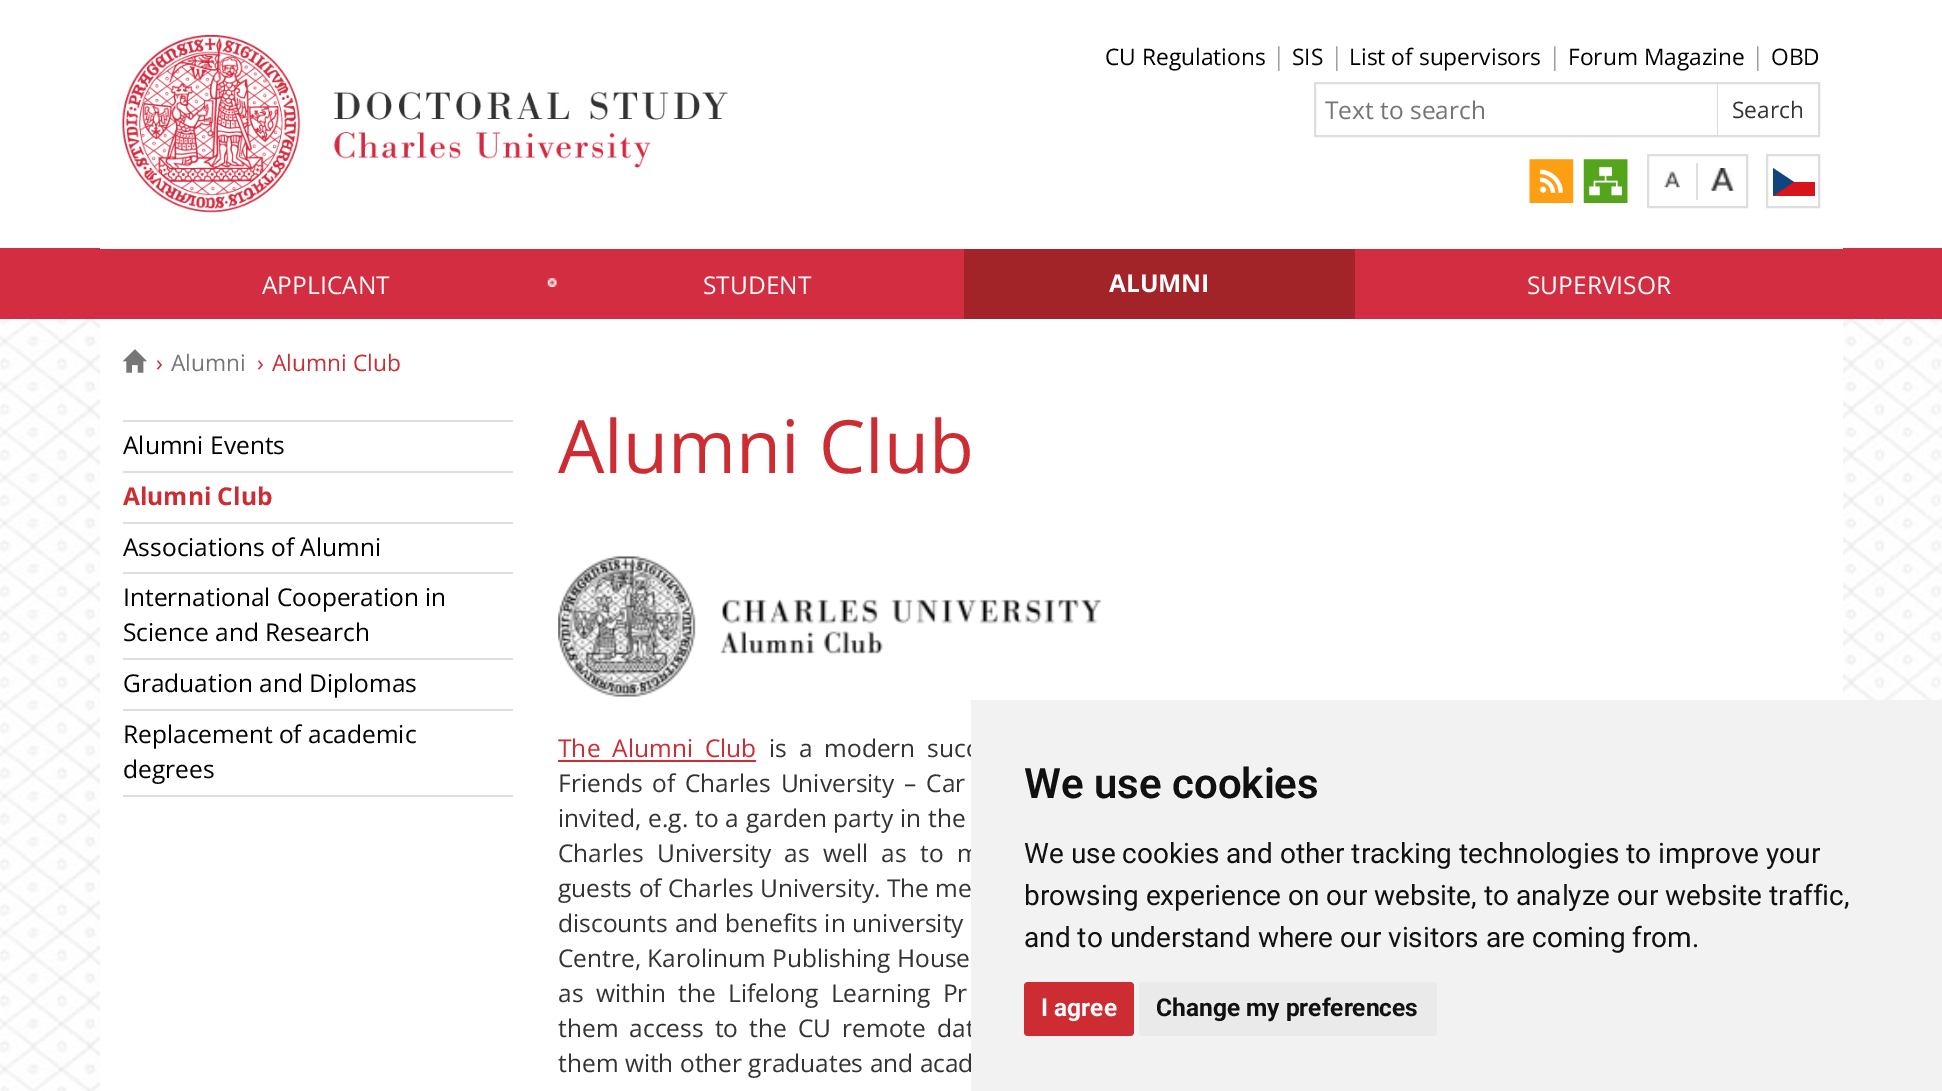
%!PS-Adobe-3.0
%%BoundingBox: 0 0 1942 1091
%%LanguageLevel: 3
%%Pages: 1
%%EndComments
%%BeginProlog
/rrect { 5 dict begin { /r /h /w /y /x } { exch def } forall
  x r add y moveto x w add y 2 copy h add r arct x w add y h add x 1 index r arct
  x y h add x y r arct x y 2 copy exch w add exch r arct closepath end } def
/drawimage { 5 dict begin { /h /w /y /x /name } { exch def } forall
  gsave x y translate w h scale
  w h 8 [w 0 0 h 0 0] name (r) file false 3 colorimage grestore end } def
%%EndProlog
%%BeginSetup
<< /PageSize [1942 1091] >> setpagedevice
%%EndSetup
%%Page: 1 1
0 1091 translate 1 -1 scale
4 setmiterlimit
1 setgray
0 0 1942 1091 rectfill
(images/1.raw) 0 319 1942 772 drawimage
0.827 0.176 0.255 setrgbcolor
0 248 1942 71 rectfill
1 setgray
100 248 1743 1 rectfill
(images/2.raw) 122 35 606 178 drawimage
0.871 setgray
2 setlinewidth
1315 83 504 53 rectstroke
newpath 1717 136 moveto 1717 82 lineto 1718 84 lineto 1718 135 lineto closepath fill
(images/3.raw) 1529 159 45 44 drawimage
(images/4.raw) 1583 159 45 44 drawimage
1648 155 99 52 rectstroke
(images/5.raw) 1664 171 16 17 drawimage
1696 163 2 37 rectfill
(images/6.raw) 1711 168 24 23 drawimage
0.843 0.078 0.102 setrgbcolor
1773 182 42 14 rectfill
0.067 0.271 0.494 setrgbcolor
newpath 1794 182 moveto 1773 168 lineto 1773 196 lineto closepath fill
0.871 setgray
1767 155 52 52 rectstroke
(images/7.raw) 547 278 10 9 drawimage
0.635 0.137 0.157 setrgbcolor
964 249 391 70 rectfill
1 setgray
100 319 1743 772 rectfill
(images/8.raw) 122 349 25 24 drawimage
0.871 setgray
123 420 390 2 rectfill
123 471 390 2 rectfill
123 522 390 2 rectfill
123 572 390 2 rectfill
123 658 390 2 rectfill
123 709 390 2 rectfill
123 795 390 2 rectfill
(images/9.raw) 558 556 543 141 drawimage
0.8 0.173 0.196 setrgbcolor
558 760 198 2 rectfill
/OpenSans-Regular [22.75 0 0 -22.75 0 0] selectfont
0 setgray
1105 65 moveto (CU Regulations) show
/OpenSans-Regular [24.5 0 0 -24.5 0 0] selectfont
0.627 setgray
1272 65 moveto (|) show
/OpenSans-Regular [22.75 0 0 -22.75 0 0] selectfont
0 setgray
1292 65 moveto (SIS) show
/OpenSans-Regular [24.5 0 0 -24.5 0 0] selectfont
0.627 setgray
1330 65 moveto (|) show
/OpenSans-Regular [22.75 0 0 -22.75 0 0] selectfont
0 setgray
1349 65 moveto (List of supervisors) show
/OpenSans-Regular [24.5 0 0 -24.5 0 0] selectfont
0.627 setgray
1548 65 moveto (|) show
/OpenSans-Regular [22.75 0 0 -22.75 0 0] selectfont
0 setgray
1568 65 moveto (Forum Magazine) show
/OpenSans-Regular [24.5 0 0 -24.5 0 0] selectfont
0.627 setgray
1751 65 moveto (|) show
/OpenSans-Regular [22.75 0 0 -22.75 0 0] selectfont
0 setgray
1771 65 moveto (OBD) show
/OpenSans-Regular [24.5 0 0 -24.5 0 0] selectfont
0.459 setgray
1325 119 moveto (Text to search) show
/OpenSans-Regular [22.75 0 0 -22.75 0 0] selectfont
0.2 setgray
1732 118 moveto (Search) show
/OpenSans-Regular [24.5 0 0 -24.5 0 0] selectfont
1 setgray
262 294 moveto (APPLICANT) show
703 294 moveto (STUDENT) show
/OpenSans-Bold [24.5 0 0 -24.5 0 0] selectfont
1109 292 moveto (ALUMNI) show
/OpenSans-Regular [24.5 0 0 -24.5 0 0] selectfont
1527 294 moveto (SUPERVISOR) show
/OpenSans-Regular [22.75 0 0 -22.75 0 0] selectfont
0.8 0.173 0.196 setrgbcolor
156 371 moveto (›) show
0.459 setgray
171 371 moveto (Alumni) show
0.8 0.173 0.196 setrgbcolor
257 371 moveto (›) show
272 371 moveto (Alumni Club) show
/OpenSans-Regular [24.5 0 0 -24.5 0 0] selectfont
0 setgray
123 454 moveto (Alumni Events) show
/OpenSans-Bold [24.5 0 0 -24.5 0 0] selectfont
0.8 0.173 0.196 setrgbcolor
123 505 moveto (Alumni Club) show
/OpenSans-Regular [24.5 0 0 -24.5 0 0] selectfont
0 setgray
123 556 moveto (Associations of Alumni) show
123 606 moveto (International Cooperation in) show
123 641 moveto (Science and Research) show
123 692 moveto (Graduation and Diplomas) show
123 743 moveto (Replacement of academic) show
123 778 moveto (degrees) show
/OpenSans-Regular [73.5 0 0 -73.5 0 0] selectfont
0.8 0.173 0.196 setrgbcolor
558 473 moveto (Alumni Club) show
/OpenSans-Regular [24.5 0 0 -24.5 0 0] selectfont
558 757 moveto 5.5 0 32 (The Alumni Club) widthshow
0.2 setgray
769 757 moveto 5.5 0 32 (is a modern succ) widthshow
558 792 moveto 3.5 0 32 (Friends of Charles University – Car) widthshow
558 827 moveto 0.5 0 32 (invited, e.g. to a garden party in the) widthshow
558 862 moveto 7 0 32 (Charles University as well as to m) widthshow
558 897 moveto (guests of Charles University. The me) show
558 932 moveto 0.5 0 32 (discounts and benefits in university) widthshow
558 967 moveto (Centre, Karolinum Publishing House) show
558 1002 moveto 6 0 32 (as within the Lifelong Learning Pr) widthshow
558 1037 moveto 4.75 0 32 (them access to the CU remote dat) widthshow
558 1072 moveto (them with other graduates and acad) show
0.949 setgray
971 700 971 391 rectfill
/Roboto-SemiBold [42 0 0 -42 0 0] selectfont
0.067 setgray
1024 798 moveto (We use cookies) show
/Roboto-Regular [28 0 0 -28 0 0] selectfont
1024 863 moveto (We use cookies and other tracking technologies to improve your) show
1024 905 moveto (browsing experience on our website, to analyze our website traffic,) show
1024 947 moveto (and to understand where our visitors are coming from.) show
0.8 0.173 0.196 setrgbcolor
1024 982 110 54 4 rrect fill
/Roboto-Bold [24.5 0 0 -24.5 0 0] selectfont
1 setgray
1041 1016 moveto (I agree) show
0.918 setgray
1139 982 298 54 4 rrect fill
0.067 setgray
1156 1016 moveto (Change my preferences) show
showpage
%%EOF
